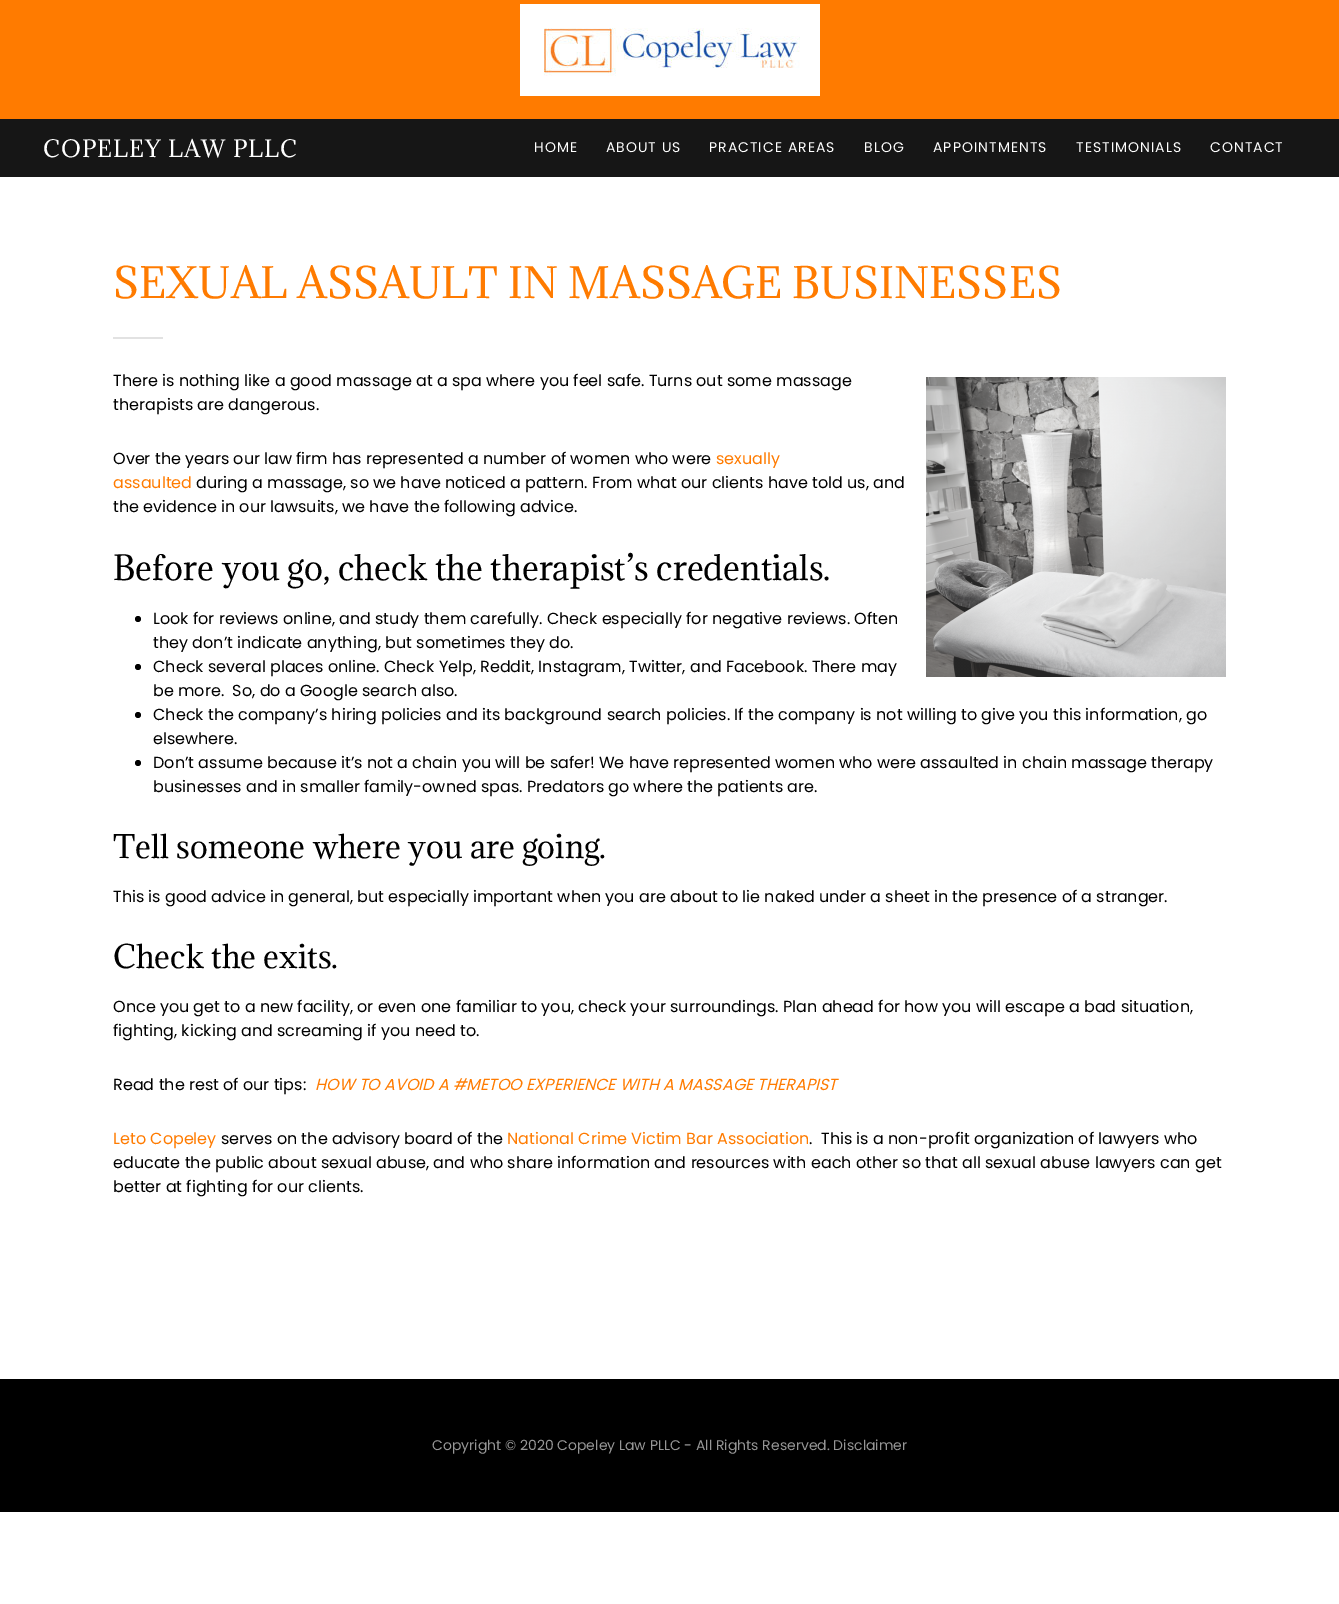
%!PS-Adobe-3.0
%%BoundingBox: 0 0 1339 1604
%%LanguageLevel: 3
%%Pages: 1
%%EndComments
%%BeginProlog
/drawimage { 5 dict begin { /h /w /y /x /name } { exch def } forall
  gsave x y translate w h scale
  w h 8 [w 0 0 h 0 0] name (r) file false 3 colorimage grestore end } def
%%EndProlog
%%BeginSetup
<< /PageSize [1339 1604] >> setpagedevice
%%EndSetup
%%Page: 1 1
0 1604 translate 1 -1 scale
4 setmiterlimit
1 setgray
0 0 1339 1604 rectfill
1 0.482 0 setrgbcolor
0 0 1339 119 rectfill
(images/1.raw) 520 4 300 92 drawimage
0.086 setgray
0 119 1339 58 rectfill
0.886 setgray
113 337 50 2 rectfill
(images/2.raw) 926 377 300 300 drawimage
0 setgray
newpath 138 619 3 0 360 arc closepath fill
newpath 138 667 3 0 360 arc closepath fill
newpath 138 715 3 0 360 arc closepath fill
newpath 138 763 3 0 360 arc closepath fill
0 1379 1339 133 rectfill
/Adamina-Regular [22 0 0 -22 0 0] selectfont
1 setgray
43 157 moveto 1 0 (COPELEY LAW PLLC) ashow
/Poppins-Regular [14 0 0 -14 0 0] selectfont
534 152 moveto 1 0 (HOME) ashow
606 152 moveto 1 0 (ABOUT US) ashow
709 152 moveto 1 0 (PRACTICE AREAS) ashow
864 152 moveto 1 0 (BLOG) ashow
933 152 moveto 1 0 (APPOINTMENTS) ashow
1076 152 moveto 1 0 (TESTIMONIALS) ashow
1210 152 moveto 1 0 (CONTACT) ashow
/Adamina-Regular [40 0 0 -40 0 0] selectfont
1 0.482 0 setrgbcolor
113 298 moveto (SEXUAL ASSAULT IN MASSAGE BUSINESSES) show
/Poppins-Regular [16 0 0 -16 0 0] selectfont
0 setgray
113 386 moveto (There is nothing like a good massage at a spa where you feel safe. Turns out some massage) show
113 410 moveto (therapists are dangerous.) show
113 464 moveto (Over the years our law firm has represented a number of women who were) show
1 0.482 0 setrgbcolor
716 464 moveto (sexually) show
113 488 moveto (assaulted) show
0 setgray
196 488 moveto (during a massage, so we have noticed a pattern. From what our clients have told us, and) show
113 512 moveto (the evidence in our lawsuits, we have the following advice.) show
/Adamina-Regular [32 0 0 -32 0 0] selectfont
113 580 moveto (Before you go, check the therapist’s credentials.) show
/Poppins-Regular [16 0 0 -16 0 0] selectfont
153 624 moveto (Look for reviews online, and study them carefully. Check especially for negative reviews. Often) show
153 648 moveto (they don’t indicate anything, but sometimes they do.) show
153 672 moveto (Check several places online. Check Yelp, Reddit, Instagram, Twitter, and Facebook. There may) show
153 696 moveto (be more.  So, do a Google search also.) show
153 720 moveto (Check the company’s hiring policies and its background search policies. If the company is not willing to give you this information, go) show
153 744 moveto (elsewhere.) show
153 768 moveto (Don’t assume because it’s not a chain you will be safer! We have represented women who were assaulted in chain massage therapy) show
153 792 moveto (businesses and in smaller family-owned spas. Predators go where the patients are.) show
/Adamina-Regular [30 0 0 -30 0 0] selectfont
113 858 moveto (Tell someone where you are going.) show
/Poppins-Regular [16 0 0 -16 0 0] selectfont
113 902 moveto (This is good advice in general, but especially important when you are about to lie naked under a sheet in the presence of a stranger.) show
/Adamina-Regular [30 0 0 -30 0 0] selectfont
113 968 moveto (Check the exits.) show
/Poppins-Regular [16 0 0 -16 0 0] selectfont
113 1012 moveto (Once you get to a new facility, or even one familiar to you, check your surroundings. Plan ahead for how you will escape a bad situation,) show
113 1036 moveto (fighting, kicking and screaming if you need to.) show
113 1090 moveto (Read the rest of our tips:) show
/Poppins-Italic [16 0 0 -16 0 0] selectfont
1 0.482 0 setrgbcolor
315 1090 moveto (HOW TO AVOID A #METOO EXPERIENCE WITH A MASSAGE THERAPIST) show
/Poppins-Regular [16 0 0 -16 0 0] selectfont
113 1144 moveto (Leto Copeley) show
0 setgray
221 1144 moveto (serves on the advisory board of the) show
1 0.482 0 setrgbcolor
507 1144 moveto (National Crime Victim Bar Association) show
0 setgray
809 1144 moveto (.  This is a non-profit organization of lawyers who) show
113 1168 moveto (educate the public about sexual abuse, and who share information and resources with each other so that all sexual abuse lawyers can get) show
113 1192 moveto (better at fighting for our clients.) show
/Poppins-Regular [14 0 0 -14 0 0] selectfont
0.588 setgray
432 1450 moveto (Copyright © 2020 Copeley Law PLLC - All Rights Reserved. Disclaimer) show
showpage
%%EOF
